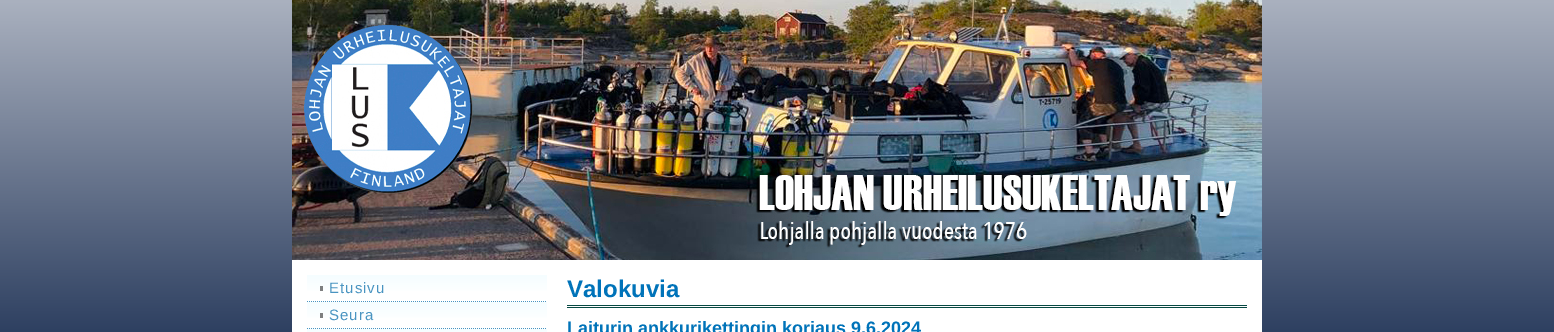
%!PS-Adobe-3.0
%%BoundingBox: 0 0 1554 332
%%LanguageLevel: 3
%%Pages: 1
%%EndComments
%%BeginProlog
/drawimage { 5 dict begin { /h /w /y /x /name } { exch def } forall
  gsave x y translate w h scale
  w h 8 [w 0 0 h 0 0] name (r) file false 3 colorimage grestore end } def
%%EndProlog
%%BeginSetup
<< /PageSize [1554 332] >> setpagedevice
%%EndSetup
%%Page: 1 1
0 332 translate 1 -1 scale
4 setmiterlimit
1 setgray
0 0 1554 332 rectfill
gsave newpath 0 0 moveto 1554 0 lineto 1554 332 lineto 0 332 lineto closepath clip newpath
<< /ShadingType 2 /ColorSpace /DeviceRGB /Coords [777 0 777 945] /Extend [true true] /Function << /FunctionType 3 /Domain [0 1] /Functions [<< /FunctionType 2 /Domain [0 1] /C0 [0.667 0.694 0.749] /C1 [0 0.09 0.247] /N 1 >> << /FunctionType 2 /Domain [0 1] /C0 [0 0.09 0.247] /C1 [0 0.09 0.247] /N 1 >>] /Bounds [0.48] /Encode [0 1 0 1] >> >> shfill grestore
(images/1.raw) 292 0 970 260 drawimage
292 260 970 72 rectfill
gsave newpath 307 275 moveto 547 275 lineto 547 291 lineto 307 291 lineto closepath clip newpath
<< /ShadingType 2 /ColorSpace /DeviceRGB /Coords [427 275 427 301] /Extend [true true] /Function << /FunctionType 3 /Domain [0 1] /Functions [<< /FunctionType 2 /Domain [0 1] /C0 [0.961 0.992 1] /C1 [1 1 1] /N 1 >> << /FunctionType 2 /Domain [0 1] /C0 [1 1 1] /C1 [1 1 1] /N 1 >>] /Bounds [0.81] /Encode [0 1 0 1] >> >> shfill grestore
0.286 0.58 0.757 setrgbcolor
[1 1] 0 setdash
newpath 307 301.5 moveto 547 301.5 lineto stroke
0.494 0.498 0.502 setrgbcolor
320 286 3 5 rectfill
gsave newpath 307 302 moveto 547 302 lineto 547 318 lineto 307 318 lineto closepath clip newpath
<< /ShadingType 2 /ColorSpace /DeviceRGB /Coords [427 302 427 328] /Extend [true true] /Function << /FunctionType 3 /Domain [0 1] /Functions [<< /FunctionType 2 /Domain [0 1] /C0 [0.961 0.992 1] /C1 [1 1 1] /N 1 >> << /FunctionType 2 /Domain [0 1] /C0 [1 1 1] /C1 [1 1 1] /N 1 >>] /Bounds [0.81] /Encode [0 1 0 1] >> >> shfill grestore
0.286 0.58 0.757 setrgbcolor
newpath 307 328.5 moveto 547 328.5 lineto stroke
0.494 0.498 0.502 setrgbcolor
320 313 3 5 rectfill
gsave newpath 307 329 moveto 547 329 lineto 547 332 lineto 307 332 lineto closepath clip newpath
<< /ShadingType 2 /ColorSpace /DeviceRGB /Coords [427 329 427 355] /Extend [true true] /Function << /FunctionType 3 /Domain [0 1] /Functions [<< /FunctionType 2 /Domain [0 1] /C0 [0.961 0.992 1] /C1 [1 1 1] /N 1 >> << /FunctionType 2 /Domain [0 1] /C0 [1 1 1] /C1 [1 1 1] /N 1 >>] /Bounds [0.81] /Encode [0 1 0 1] >> >> shfill grestore
0.024 0.282 0.259 setrgbcolor
567 305 680 1 rectfill
567 307 680 1 rectfill
/LiberationSans-Regular [15 0 0 -15 0 0] selectfont
0.286 0.58 0.757 setrgbcolor
329 293 moveto 1 0 (Etusivu) ashow
329 320 moveto 1 0 (Seura) ashow
/LiberationSans-Bold [24 0 0 -24 0 0] selectfont
0 0.451 0.725 setrgbcolor
567 297 moveto (Valokuvia) show
/LiberationSans-Bold [18 0 0 -18 0 0] selectfont
567 334 moveto (Laiturin ankkurikettingin korjaus 9.6.2024) show
showpage
%%EOF
